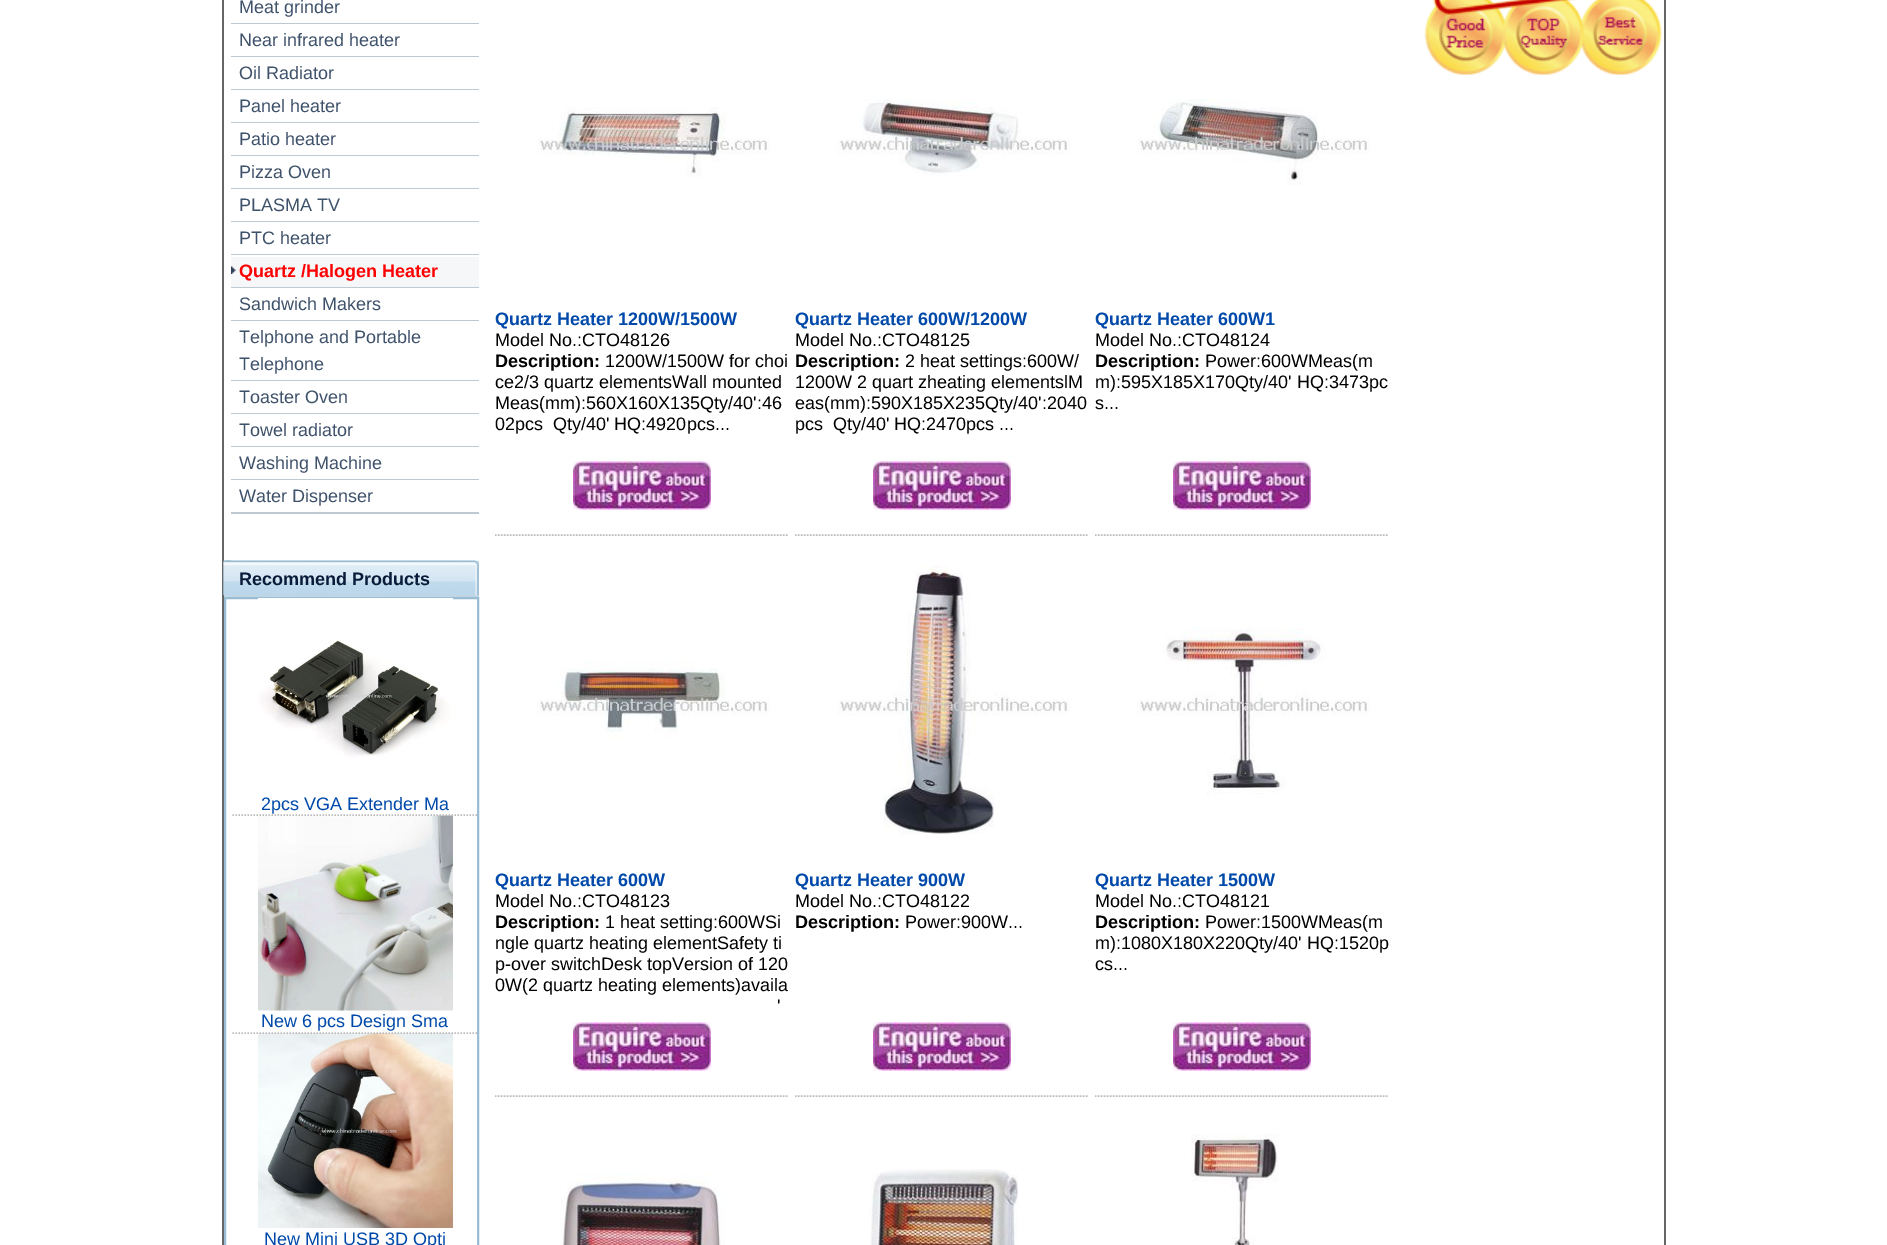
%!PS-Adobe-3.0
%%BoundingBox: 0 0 1887 1245
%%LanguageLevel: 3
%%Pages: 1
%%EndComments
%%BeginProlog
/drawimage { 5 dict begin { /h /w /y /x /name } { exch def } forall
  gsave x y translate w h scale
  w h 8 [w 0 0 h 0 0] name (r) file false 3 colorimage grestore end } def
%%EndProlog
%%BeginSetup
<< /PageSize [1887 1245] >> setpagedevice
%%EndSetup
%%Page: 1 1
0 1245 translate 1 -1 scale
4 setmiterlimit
1 setgray
0 0 1887 1245 rectfill
0.4 setgray
1664 0 2 1245 rectfill
222 0 2 1245 rectfill
0.745 0.788 0.82 setrgbcolor
231 23 248 1 rectfill
231 56 248 1 rectfill
231 89 248 1 rectfill
231 122 248 1 rectfill
231 155 248 1 rectfill
231 188 248 1 rectfill
231 221 248 1 rectfill
231 254 248 1 rectfill
0.961 0.969 0.976 setrgbcolor
231 257 248 30 rectfill
(images/1.raw) 231 266 5 8 drawimage
0.745 0.788 0.82 setrgbcolor
231 287 248 1 rectfill
231 320 248 1 rectfill
231 380 248 1 rectfill
231 413 248 1 rectfill
231 446 248 1 rectfill
231 479 248 1 rectfill
231 512 248 2 rectfill
(images/2.raw) 223 560 8 35 drawimage
0.753 0.839 0.898 setrgbcolor
224 561 255 36 rectfill
(images/3.raw) 223 560 256 35 drawimage
0.608 0.741 0.827 setrgbcolor
2 setlinewidth
225 598 253 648 rectstroke
(images/4.raw) 258 598 195 160 drawimage
(images/5.raw) 258 815 195 196 drawimage
0.733 setgray
1.5 setlinewidth
[1.5 1.5] 0 setdash
newpath 232.5 815 moveto 477 815 lineto stroke
(images/6.raw) 258 1033 195 195 drawimage
newpath 232.5 1033 moveto 477 1033 lineto stroke
(images/7.raw) 1424 0 239 75 drawimage
newpath 495 535 moveto 789 535 lineto stroke
(images/8.raw) 537 107 233 70 drawimage
(images/9.raw) 573 461 138 49 drawimage
newpath 795 535 moveto 1089 535 lineto stroke
(images/10.raw) 837 99 233 77 drawimage
(images/11.raw) 873 461 138 49 drawimage
newpath 1095 535 moveto 1389 535 lineto stroke
(images/12.raw) 1137 99 233 86 drawimage
(images/13.raw) 1173 461 138 49 drawimage
newpath 495 1096 moveto 789 1096 lineto stroke
(images/14.raw) 537 660 233 79 drawimage
(images/9.raw) 573 1022 138 49 drawimage
newpath 795 1096 moveto 1089 1096 lineto stroke
(images/15.raw) 837 565 233 270 drawimage
(images/11.raw) 873 1022 138 49 drawimage
newpath 1095 1096 moveto 1389 1096 lineto stroke
(images/16.raw) 1137 628 233 167 drawimage
(images/13.raw) 1173 1022 138 49 drawimage
(images/17.raw) 560 1173 165 72 drawimage
(images/18.raw) 870 1169 149 76 drawimage
(images/19.raw) 1191 1134 88 111 drawimage
/LiberationSans-Regular [18 0 0 -18 0 0] selectfont
0.247 0.322 0.42 setrgbcolor
239 13 moveto (Meat grinder) show
239 46 moveto (Near infrared heater) show
239 79 moveto (Oil Radiator) show
239 112 moveto (Panel heater) show
239 145 moveto (Patio heater) show
239 178 moveto (Pizza Oven) show
239 211 moveto (PLASMA TV) show
239 244 moveto (PTC heater) show
/LiberationSans-Bold [18 0 0 -18 0 0] selectfont
1 0 0 setrgbcolor
239 277 moveto (Quartz /Halogen Heater) show
/LiberationSans-Regular [18 0 0 -18 0 0] selectfont
0.247 0.322 0.42 setrgbcolor
239 310 moveto (Sandwich Makers) show
239 343 moveto (Telphone and Portable) show
239 370 moveto (Telephone) show
239 403 moveto (Toaster Oven) show
239 436 moveto (Towel radiator) show
239 469 moveto (Washing Machine) show
239 502 moveto (Water Dispenser) show
/LiberationSans-Bold [18 0 0 -18 0 0] selectfont
0.031 0.106 0.224 setrgbcolor
239 585 moveto (Recommend Products) show
/LiberationSans-Regular [18 0 0 -18 0 0] selectfont
0 0.286 0.667 setrgbcolor
261 810 moveto (2pcs VGA Extender Ma) show
261 1027 moveto (New 6 pcs Design Sma) show
264 1245 moveto (New Mini USB 3D Opti) show
/LiberationSans-Bold [18 0 0 -18 0 0] selectfont
495 325 moveto (Quartz Heater 1200W/1500W) show
/LiberationSans-Regular [18 0 0 -18 0 0] selectfont
0 setgray
495 346 moveto (Model No.:CTO48126) show
/LiberationSans-Bold [18 0 0 -18 0 0] selectfont
495 367 moveto (Description:) show
/LiberationSans-Regular [18 0 0 -18 0 0] selectfont
605 367 moveto (1200W/1500W for choi) show
495 388 moveto (ce2/3 quartz elementsWall mounted) show
495 409 moveto (Meas\(mm\):560X160X135Qty/40':46) show
495 430 moveto (02pcs  Qty/40' HQ:4920pcs...) show
/LiberationSans-Bold [18 0 0 -18 0 0] selectfont
0 0.286 0.667 setrgbcolor
795 325 moveto (Quartz Heater 600W/1200W) show
/LiberationSans-Regular [18 0 0 -18 0 0] selectfont
0 setgray
795 346 moveto (Model No.:CTO48125) show
/LiberationSans-Bold [18 0 0 -18 0 0] selectfont
795 367 moveto (Description:) show
/LiberationSans-Regular [18 0 0 -18 0 0] selectfont
905 367 moveto (2 heat settings:600W/) show
795 388 moveto (1200W 2 quart zheating elementslM) show
795 409 moveto (eas\(mm\):590X185X235Qty/40':2040) show
795 430 moveto (pcs  Qty/40' HQ:2470pcs ...) show
/LiberationSans-Bold [18 0 0 -18 0 0] selectfont
0 0.286 0.667 setrgbcolor
1095 325 moveto (Quartz Heater 600W1) show
/LiberationSans-Regular [18 0 0 -18 0 0] selectfont
0 setgray
1095 346 moveto (Model No.:CTO48124) show
/LiberationSans-Bold [18 0 0 -18 0 0] selectfont
1095 367 moveto (Description:) show
/LiberationSans-Regular [18 0 0 -18 0 0] selectfont
1205 367 moveto (Power:600WMeas\(m) show
1095 388 moveto (m\):595X185X170Qty/40' HQ:3473pc) show
1095 409 moveto (s...) show
/LiberationSans-Bold [18 0 0 -18 0 0] selectfont
0 0.286 0.667 setrgbcolor
495 886 moveto (Quartz Heater 600W) show
/LiberationSans-Regular [18 0 0 -18 0 0] selectfont
0 setgray
495 907 moveto (Model No.:CTO48123) show
/LiberationSans-Bold [18 0 0 -18 0 0] selectfont
495 928 moveto (Description:) show
/LiberationSans-Regular [18 0 0 -18 0 0] selectfont
605 928 moveto (1 heat setting:600WSi) show
495 949 moveto (ngle quartz heating elementSafety ti) show
495 970 moveto (p-over switchDesk topVersion of 120) show
495 991 moveto (0W\(2 quartz heating elements\)availa) show
777 1012 moveto (') show
/LiberationSans-Bold [18 0 0 -18 0 0] selectfont
0 0.286 0.667 setrgbcolor
795 886 moveto (Quartz Heater 900W) show
/LiberationSans-Regular [18 0 0 -18 0 0] selectfont
0 setgray
795 907 moveto (Model No.:CTO48122) show
/LiberationSans-Bold [18 0 0 -18 0 0] selectfont
795 928 moveto (Description:) show
/LiberationSans-Regular [18 0 0 -18 0 0] selectfont
905 928 moveto (Power:900W...) show
/LiberationSans-Bold [18 0 0 -18 0 0] selectfont
0 0.286 0.667 setrgbcolor
1095 886 moveto (Quartz Heater 1500W) show
/LiberationSans-Regular [18 0 0 -18 0 0] selectfont
0 setgray
1095 907 moveto (Model No.:CTO48121) show
/LiberationSans-Bold [18 0 0 -18 0 0] selectfont
1095 928 moveto (Description:) show
/LiberationSans-Regular [18 0 0 -18 0 0] selectfont
1205 928 moveto (Power:1500WMeas\(m) show
1095 949 moveto (m\):1080X180X220Qty/40' HQ:1520p) show
1095 970 moveto (cs...) show
showpage
%%EOF
